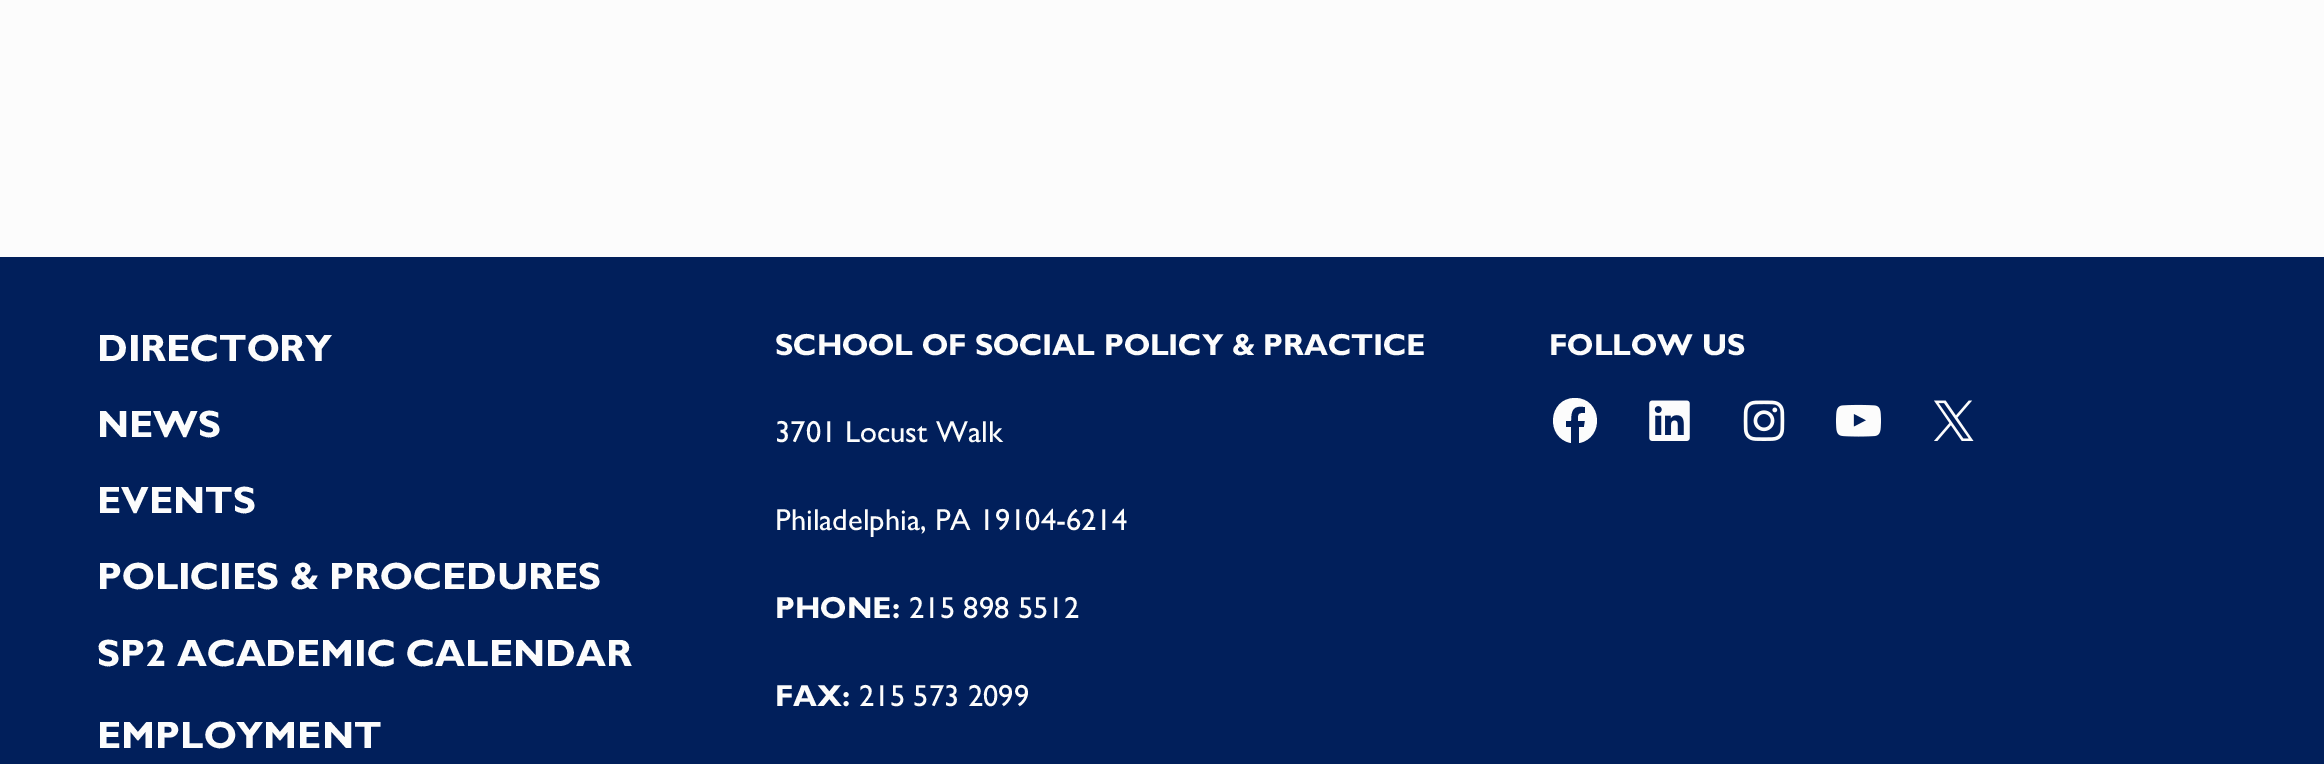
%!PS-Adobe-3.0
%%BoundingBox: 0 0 2324 764
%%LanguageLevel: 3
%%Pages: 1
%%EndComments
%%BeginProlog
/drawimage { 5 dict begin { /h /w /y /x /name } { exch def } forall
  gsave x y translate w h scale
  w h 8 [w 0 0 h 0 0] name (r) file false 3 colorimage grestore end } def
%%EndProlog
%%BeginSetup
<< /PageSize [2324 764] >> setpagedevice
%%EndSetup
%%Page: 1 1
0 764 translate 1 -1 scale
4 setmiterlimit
0.988 setgray
0 0 2324 764 rectfill
0.004 0.122 0.357 setrgbcolor
0 257 2324 507 rectfill
0.988 setgray
newpath 1575 398 moveto 1548 398 1545 438 1571 443 curveto 1571 427 lineto 1566 427 lineto 1566 421 lineto 1571 421 lineto 1571 410 1573 405 1585 407 curveto 1585 413 lineto 1578 413 1578 414 1578 421 curveto 1585 421 lineto 1584 427 lineto 1579 427 lineto 1579 443 lineto 1605 438 1602 398 1575 398 curveto closepath fill
(images/1.raw) 1649 400 41 41 drawimage
(images/2.raw) 1743 400 42 41 drawimage
(images/3.raw) 1836 404 45 33 drawimage
(images/4.raw) 1934 400 40 41 drawimage
/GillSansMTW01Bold-Bold [38.25 0 0 -38.25 0 0] selectfont
97 361 moveto (DIRECTORY) show
97 437 moveto (NEWS) show
97 513 moveto (EVENTS) show
97 589 moveto (POLICIES & PROCEDURES) show
97 666 moveto (SP2 ACADEMIC CALENDAR) show
97 748 moveto (EMPLOYMENT) show
/GillSansMTW01Bold-Bold [30.6 0 0 -30.6 0 0] selectfont
775 355 moveto (SCHOOL OF SOCIAL POLICY & PRACTICE) show
/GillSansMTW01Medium-Medium [30.6 0 0 -30.6 0 0] selectfont
775 442 moveto (3701 Locust Walk) show
775 530 moveto (Philadelphia, PA 19104-6214) show
/GillSansMTW01Bold-Bold [30.6 0 0 -30.6 0 0] selectfont
775 618 moveto (PHONE:) show
/GillSansMTW01Medium-Medium [30.6 0 0 -30.6 0 0] selectfont
909 618 moveto (215 898 5512) show
/GillSansMTW01Bold-Bold [30.6 0 0 -30.6 0 0] selectfont
775 706 moveto (FAX:) show
/GillSansMTW01Medium-Medium [30.6 0 0 -30.6 0 0] selectfont
859 706 moveto (215 573 2099) show
/GillSansMTW01Bold-Bold [30.6 0 0 -30.6 0 0] selectfont
1549 355 moveto (FOLLOW US) show
showpage
%%EOF
